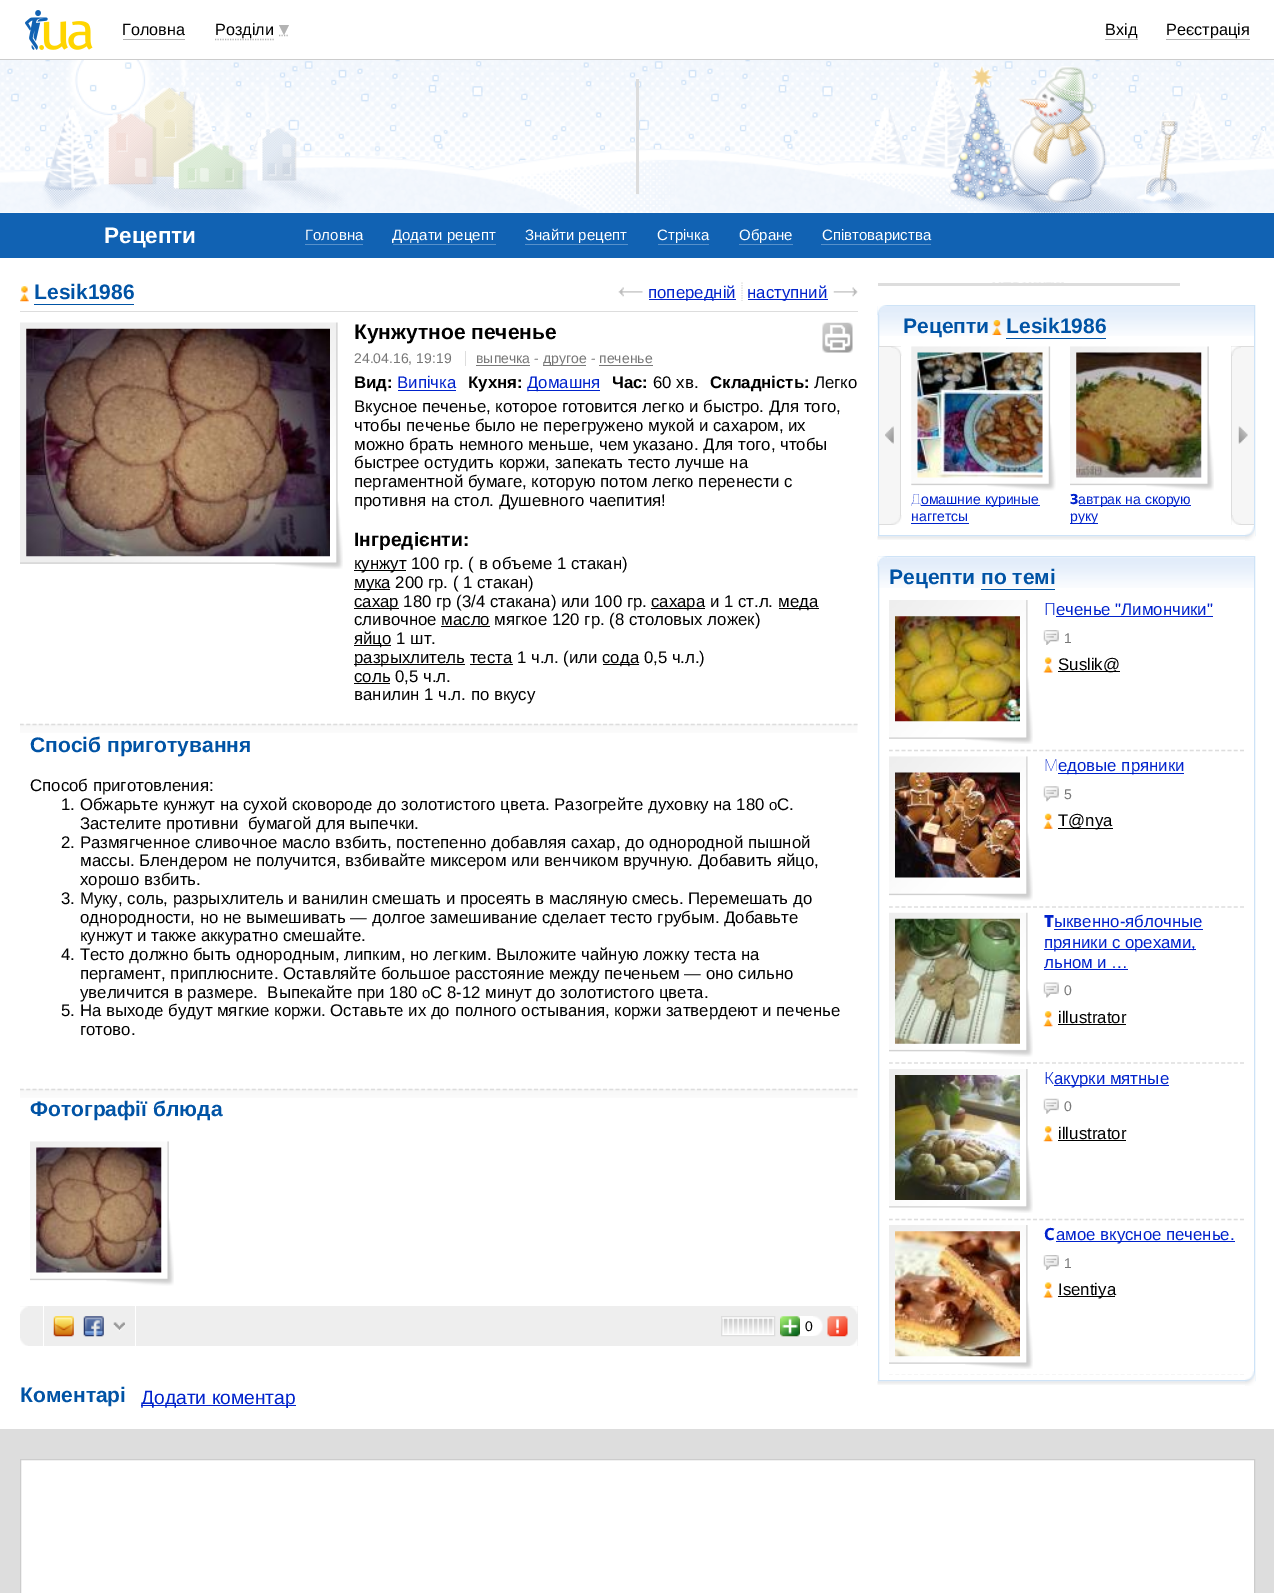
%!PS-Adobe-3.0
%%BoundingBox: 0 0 1274 1593
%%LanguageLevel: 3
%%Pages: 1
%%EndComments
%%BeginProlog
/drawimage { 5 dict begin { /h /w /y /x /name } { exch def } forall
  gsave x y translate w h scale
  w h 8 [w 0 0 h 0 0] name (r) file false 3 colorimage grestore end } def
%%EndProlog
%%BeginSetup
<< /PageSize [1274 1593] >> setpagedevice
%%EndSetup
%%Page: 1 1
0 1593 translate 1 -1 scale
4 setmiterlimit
1 setgray
0 0 1274 1593 rectfill
0.8 setgray
0 59 1274 1 rectfill
(images/1.raw) 25 10 68 40 drawimage
0.702 setgray
123 39 62 1 rectfill
1.2 setlinewidth
[1.25 1.25] 0 setdash
newpath 215 39.5 moveto 274 39.5 lineto stroke
newpath 279 35.5 moveto 289 35.5 lineto stroke
newpath 279 25 moveto 289 25 lineto 284 35 lineto closepath fill
1105 39 33 1 rectfill
1166 39 84 1 rectfill
(images/2.raw) 0 60 1274 153 drawimage
0.867 setgray
636 79 3 115 rectfill
0.067 0.384 0.702 setrgbcolor
0 213 1274 45 rectfill
0.345 0.569 0.792 setrgbcolor
305 244 58 1 rectfill
393 244 103 1 rectfill
525 244 103 1 rectfill
658 244 51 1 rectfill
739 244 54 1 rectfill
821 244 110 1 rectfill
(images/3.raw) 20 286 9 16 drawimage
0 0.325 0.647 setrgbcolor
34 304 100 1 rectfill
0.867 setgray
newpath 742 282.5 moveto 742 301 lineto stroke
(images/4.raw) 618 287 25 10 drawimage
0 0.133 0.8 setrgbcolor
649 299 87 1 rectfill
748 299 80 1 rectfill
(images/5.raw) 833 287 25 10 drawimage
0.867 setgray
20 311 838 1 rectfill
(images/6.raw) 20 322 323 247 drawimage
(images/7.raw) 26 328 304 229 drawimage
(images/8.raw) 822 322 31 31 drawimage
465 351 1 15 rectfill
0.467 setgray
476 365 54 1 rectfill
543 365 43 1 rectfill
599 365 54 1 rectfill
0 0.133 0.8 setrgbcolor
398 390 58 1 rectfill
528 390 72 1 rectfill
0 setgray
354 570 52 1 rectfill
354 589 36 1 rectfill
354 608 45 1 rectfill
651 608 54 1 rectfill
779 608 40 1 rectfill
441 626 49 1 rectfill
354 645 37 1 rectfill
354 664 111 1 rectfill
603 664 36 1 rectfill
470 664 43 1 rectfill
354 683 36 1 rectfill
(images/9.raw) 20 724 838 9 drawimage
0.867 setgray
[3.75 2.52] 0 setdash
newpath 20 724.5 moveto 857.5 724.5 lineto stroke
(images/9.raw) 20 1089 838 9 drawimage
newpath 20 1089.5 moveto 857.5 1089.5 lineto stroke
(images/10.raw) 30 1141 144 145 drawimage
(images/11.raw) 36 1147 126 126 drawimage
0.933 setgray
20 1306 838 40 rectfill
(images/12.raw) 20 1306 8 8 drawimage
(images/13.raw) 850 1306 8 8 drawimage
1 setgray
135 1306 1 42 rectfill
43 1306 1 42 rectfill
(images/14.raw) 53 1316 21 21 drawimage
(images/15.raw) 83 1316 21 21 drawimage
(images/16.raw) 113 1322 12 10 drawimage
722 1317 52 18 rectfill
(images/17.raw) 722 1318 52 16 drawimage
0.867 setgray
1 setlinewidth
[] 0 setdash
721.5 1316.5 53 19 rectstroke
1 setgray
783 1316 30 20 rectfill
(images/18.raw) 780 1316 20 21 drawimage
(images/19.raw) 813 1316 10 20 drawimage
(images/20.raw) 827 1316 21 21 drawimage
(images/21.raw) 20 1338 8 8 drawimage
(images/22.raw) 850 1339 8 7 drawimage
0 0.133 0.8 setrgbcolor
141 1405 155 1 rectfill
(images/23.raw) 992 282 72 1 drawimage
0.867 setgray
878 283 302 3 rectfill
(images/24.raw) 877 536 368 4 drawimage
(images/26.raw) 877 306 377 30 drawimage
0.808 0.89 0.969 setrgbcolor
878.5 305.5 376 230 rectstroke
(images/25.raw) 877 305 10 10 drawimage
(images/27.raw) 992 320 10 15 drawimage
0 0.325 0.647 setrgbcolor
1006 338 100 1 rectfill
0.965 setgray
879 347 21 177 rectfill
0.867 setgray
879 346 22 1 rectfill
900 346 1 179 rectfill
879 524 13 1 rectfill
(images/28.raw) 891 346 11 10 drawimage
(images/29.raw) 885 426 9 18 drawimage
(images/30.raw) 891 515 11 10 drawimage
(images/31.raw) 911 346 145 145 drawimage
(images/32.raw) 917 352 126 126 drawimage
0 0.133 0.8 setrgbcolor
921 505 119 1 rectfill
911 523 58 1 rectfill
(images/33.raw) 1070 346 144 145 drawimage
(images/34.raw) 1076 352 126 126 drawimage
1079 505 112 1 rectfill
1070 523 28 1 rectfill
0.965 setgray
1232 347 22 177 rectfill
0.867 setgray
1231 346 23 1 rectfill
1241 524 13 1 rectfill
1231 346 1 179 rectfill
(images/35.raw) 1231 346 10 10 drawimage
(images/36.raw) 1238 426 10 18 drawimage
(images/37.raw) 1231 515 10 10 drawimage
(images/38.raw) 1245 526 10 15 drawimage
(images/24.raw) 877 1381 368 4 drawimage
(images/40.raw) 877 557 377 31 drawimage
0.808 0.89 0.969 setrgbcolor
878.5 556.5 376 824 rectstroke
(images/39.raw) 877 556 11 11 drawimage
0 0.325 0.647 setrgbcolor
981 589 74 1 rectfill
0.867 setgray
1.2 setlinewidth
[3.75 2.52] 0 setdash
newpath 889 750.5 moveto 1244 750.5 lineto stroke
(images/41.raw) 889 600 144 144 drawimage
(images/42.raw) 895 616 125 106 drawimage
0 0.133 0.8 setrgbcolor
1056 616 157 1 rectfill
(images/43.raw) 1043 630 16 15 drawimage
(images/44.raw) 1043 657 10 16 drawimage
0 setgray
1058 671 62 1 rectfill
0.867 setgray
newpath 889 907 moveto 1244 907 lineto stroke
(images/45.raw) 889 756 144 145 drawimage
(images/46.raw) 895 772 125 106 drawimage
0 0.133 0.8 setrgbcolor
1058 773 126 1 rectfill
(images/47.raw) 1043 786 16 16 drawimage
(images/48.raw) 1043 813 10 16 drawimage
0 setgray
1058 828 55 1 rectfill
0.867 setgray
newpath 889 1063 moveto 1244 1063 lineto stroke
(images/49.raw) 889 912 144 145 drawimage
(images/50.raw) 895 918 125 126 drawimage
0 0.133 0.8 setrgbcolor
1054 929 149 1 rectfill
1044 949 152 1 rectfill
1044 969 84 1 rectfill
(images/51.raw) 1043 982 16 16 drawimage
(images/52.raw) 1043 1011 10 16 drawimage
0 setgray
1058 1024 68 1 rectfill
0.867 setgray
newpath 889 1219.5 moveto 1244 1219.5 lineto stroke
(images/53.raw) 889 1069 144 144 drawimage
(images/54.raw) 895 1075 125 125 drawimage
0 0.133 0.8 setrgbcolor
1054 1085 115 1 rectfill
(images/55.raw) 1043 1098 16 16 drawimage
(images/52.raw) 1043 1126 10 16 drawimage
0 setgray
1058 1140 68 1 rectfill
gsave
889 594 355 781 rectclip
0.867 setgray
newpath 889 1375.5 moveto 1244 1375.5 lineto stroke
grestore
(images/41.raw) 889 1225 144 144 drawimage
(images/56.raw) 895 1231 125 126 drawimage
0 0.133 0.8 setrgbcolor
1056 1241 179 1 rectfill
(images/43.raw) 1043 1255 16 15 drawimage
(images/44.raw) 1043 1282 10 16 drawimage
0 setgray
1058 1296 57 1 rectfill
(images/38.raw) 1245 1371 10 15 drawimage
0.867 setgray
0 1429 1274 164 rectfill
1 setgray
newpath 20.5 1459.5 moveto 1254.5 1459.5 lineto 1254.5 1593.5 lineto 20.5 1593.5 lineto closepath gsave fill grestore
0.8 setgray
1 setlinewidth
[] 0 setdash
stroke
/LiberationSans-Regular [16.25 0 0 -16.25 0 0] selectfont
0 setgray
122 35 moveto (Головна) show
215 35 moveto (Розділи) show
1105 35 moveto (Вхід) show
1166 35 moveto (Реєстрація) show
/LiberationSans-Bold [22.5 0 0 -22.5 0 0] selectfont
1 setgray
104 243 moveto (Рецепти) show
/LiberationSans-Regular [15 0 0 -15 0 0] selectfont
305 240 moveto (Головна) show
392 240 moveto (Додати рецепт) show
525 240 moveto (Знайти рецепт) show
657 240 moveto (Стрічка) show
739 240 moveto (Обране) show
822 240 moveto (Співтовариства) show
/LiberationSans-Bold [21 0 0 -21 0 0] selectfont
0 0.325 0.647 setrgbcolor
34 299 moveto (Lesik1986) show
gsave
609 283 249 18 rectclip
/LiberationSans-Regular [16.8 0 0 -16.8 0 0] selectfont
0 0.133 0.8 setrgbcolor
648 298 moveto (попередній) show
747 298 moveto (наступний) show
grestore
0 setgray
354 339 moveto (Кунжутное печенье) show
/LiberationSans-Regular [14 0 0 -14 0 0] selectfont
0.467 setgray
354 363 moveto (24.04.16, 19:19) show
476 363 moveto (выпечка -) show
543 363 moveto (другое - печенье) show
/LiberationSans-Bold [16.8 0 0 -16.8 0 0] selectfont
0 setgray
354 388 moveto (Вид:) show
/LiberationSans-Regular [16.8 0 0 -16.8 0 0] selectfont
0 0.133 0.8 setrgbcolor
397 388 moveto (Випічка) show
/LiberationSans-Bold [16.8 0 0 -16.8 0 0] selectfont
0 setgray
468 388 moveto (Кухня:) show
/LiberationSans-Regular [16.8 0 0 -16.8 0 0] selectfont
0 0.133 0.8 setrgbcolor
527 388 moveto (Домашня) show
/LiberationSans-Bold [16.8 0 0 -16.8 0 0] selectfont
0 setgray
612 388 moveto (Час:) show
/LiberationSans-Regular [16.8 0 0 -16.8 0 0] selectfont
653 388 moveto (60 хв.) show
/LiberationSans-Bold [16.8 0 0 -16.8 0 0] selectfont
710 388 moveto (Складність:) show
/LiberationSans-Regular [16.8 0 0 -16.8 0 0] selectfont
814 388 moveto (Легко) show
354 412 moveto (Вкусное печенье, которое готовится легко и быстро. Для того,) show
354 431 moveto (чтобы печенье было не перегружено мукой и сахаром, их) show
354 450 moveto (можно брать немного меньше, чем указано. Для того, чтобы) show
354 468 moveto (быстрее остудить коржи, запекать тесто лучше на) show
354 487 moveto (пергаментной бумаге, которую потом легко перенести с) show
354 506 moveto (противня на стол. Душевного чаепития!) show
/LiberationSans-Bold [19.25 0 0 -19.25 0 0] selectfont
354 546 moveto (Інгредієнти:) show
/LiberationSans-Regular [16.8 0 0 -16.8 0 0] selectfont
354 569 moveto (кунжут 100 гр. \( в объеме 1 стакан\)) show
354 588 moveto (мука 200 гр. \( 1 стакан\)) show
354 607 moveto (сахар 180 гр \(3/4 стакана\) или 100 гр.) show
651 607 moveto (сахара и 1 ст.л.) show
778 607 moveto (меда) show
354 625 moveto (сливочное масло мягкое 120 гр. \(8 столовых ложек\)) show
354 644 moveto (яйцо 1 шт.) show
354 663 moveto (разрыхлитель теста 1 ч.л. \(или) show
602 663 moveto (сода 0,5 ч.л.\)) show
354 682 moveto (соль 0,5 ч.л.) show
354 700 moveto (ванилин 1 ч.л. по вкусу) show
/LiberationSans-Bold [21 0 0 -21 0 0] selectfont
0 0.325 0.647 setrgbcolor
30 752 moveto (Спосіб приготування) show
/LiberationSans-Regular [16.8 0 0 -16.8 0 0] selectfont
0 setgray
30 791 moveto (Способ приготовления:) show
61 810 moveto (1. Обжарьте кунжут на сухой сковороде до золотистого цвета. Разогрейте духовку на 180) show
/LiberationSans-Regular [15 0 0 -15 0 0] selectfont
769 810 moveto (о) show
/LiberationSans-Regular [16.8 0 0 -16.8 0 0] selectfont
777 810 moveto (С.) show
80 829 moveto (Застелите противни  бумагой для выпечки.) show
61 848 moveto (2. Размягченное сливочное масло взбить, постепенно добавляя сахар, до однородной пышной) show
80 866 moveto (массы. Блендером не получится, взбивайте миксером или венчиком вручную. Добавить яйцо,) show
80 885 moveto (хорошо взбить.) show
61 904 moveto (3. Муку, соль, разрыхлитель и ванилин смешать и просеять в масляную смесь. Перемешать до) show
80 923 moveto (однородности, но не вымешивать — долгое замешивание сделает тесто грубым. Добавьте) show
80 941 moveto (кунжут и также аккуратно смешайте.) show
61 960 moveto (4. Тесто должно быть однородным, липким, но легким. Выложите чайную ложку теста на) show
80 979 moveto (пергамент, приплюсните. Оставляйте большое расстояние между печеньем — оно сильно) show
80 998 moveto (увеличится в размере.  Выпекайте при 180) show
/LiberationSans-Regular [15 0 0 -15 0 0] selectfont
422 998 moveto (о) show
/LiberationSans-Regular [16.8 0 0 -16.8 0 0] selectfont
430 998 moveto (С 8-12 минут до золотистого цвета.) show
61 1016 moveto (5. На выходе будут мягкие коржи. Оставьте их до полного остывания, коржи затвердеют и печенье) show
80 1035 moveto (готово.) show
/LiberationSans-Bold [21 0 0 -21 0 0] selectfont
0 0.325 0.647 setrgbcolor
30 1116 moveto (Фотографії блюда) show
/LiberationSans-Regular [14 0 0 -14 0 0] selectfont
0 setgray
805 1331 moveto (0) show
/LiberationSans-Bold [21 0 0 -21 0 0] selectfont
0 0.325 0.647 setrgbcolor
20 1402 moveto (Коментарі) show
/LiberationSans-Regular [19.25 0 0 -19.25 0 0] selectfont
0 0.133 0.8 setrgbcolor
141 1404 moveto (Додати коментар) show
/LiberationSans-Bold [21 0 0 -21 0 0] selectfont
0 0.325 0.647 setrgbcolor
903 333 moveto (Рецепти) show
1006 333 moveto (Lesik1986) show
/NotoSans-Thin [14 0 0 -14 0 0] selectfont
0 0.133 0.8 setrgbcolor
911 504 moveto (Д) show
/LiberationSans-Regular [14 0 0 -14 0 0] selectfont
921 504 moveto (омашние куриные) show
911 521 moveto (наггетсы) show
/NotoSans-ExtraBold [14 0 0 -14 0 0] selectfont
1070 504 moveto (З) show
/LiberationSans-Regular [14 0 0 -14 0 0] selectfont
1078 504 moveto (автрак на скорую) show
1070 521 moveto (руку) show
/LiberationSans-Bold [21 0 0 -21 0 0] selectfont
0 0.325 0.647 setrgbcolor
889 584 moveto (Рецепти по темі) show
/NotoSans-Light [16.8 0 0 -16.8 0 0] selectfont
0 0.133 0.8 setrgbcolor
1044 615 moveto (П) show
/LiberationSans-Regular [16.8 0 0 -16.8 0 0] selectfont
1056 615 moveto (еченье "Лимончики") show
/LiberationSans-Regular [14 0 0 -14 0 0] selectfont
0.467 setgray
1064 643 moveto (1) show
/LiberationSans-Regular [16.8 0 0 -16.8 0 0] selectfont
0 setgray
1058 670 moveto (Suslik@) show
/NotoSans-Thin [16.8 0 0 -16.8 0 0] selectfont
0 0.133 0.8 setrgbcolor
1044 771 moveto (М) show
/LiberationSans-Regular [16.8 0 0 -16.8 0 0] selectfont
1058 771 moveto (едовые пряники) show
/LiberationSans-Regular [14 0 0 -14 0 0] selectfont
0.467 setgray
1064 799 moveto (5) show
/LiberationSans-Regular [16.8 0 0 -16.8 0 0] selectfont
0 setgray
1058 826 moveto (T@nya) show
/NotoSans-Black [16.8 0 0 -16.8 0 0] selectfont
0 0.133 0.8 setrgbcolor
1044 927 moveto (Т) show
/LiberationSans-Regular [16.8 0 0 -16.8 0 0] selectfont
1054 927 moveto (ыквенно-яблочные) show
1044 948 moveto (пряники с орехами,) show
1044 968 moveto (льном и …) show
/LiberationSans-Regular [14 0 0 -14 0 0] selectfont
0.467 setgray
1064 995 moveto (0) show
/LiberationSans-Regular [16.8 0 0 -16.8 0 0] selectfont
0 setgray
1058 1023 moveto (illustrator) show
/NotoSans-Light [16.8 0 0 -16.8 0 0] selectfont
0 0.133 0.8 setrgbcolor
1044 1084 moveto (К) show
/LiberationSans-Regular [16.8 0 0 -16.8 0 0] selectfont
1054 1084 moveto (акурки мятные) show
/LiberationSans-Regular [14 0 0 -14 0 0] selectfont
0.467 setgray
1064 1111 moveto (0) show
/LiberationSans-Regular [16.8 0 0 -16.8 0 0] selectfont
0 setgray
1058 1139 moveto (illustrator) show
/NotoSans-Bold [16.8 0 0 -16.8 0 0] selectfont
0 0.133 0.8 setrgbcolor
1044 1240 moveto (С) show
/LiberationSans-Regular [16.8 0 0 -16.8 0 0] selectfont
1056 1240 moveto (амое вкусное печенье.) show
/LiberationSans-Regular [14 0 0 -14 0 0] selectfont
0.467 setgray
1064 1268 moveto (1) show
/LiberationSans-Regular [16.8 0 0 -16.8 0 0] selectfont
0 setgray
1058 1295 moveto (Isentiya) show
showpage
%%EOF
